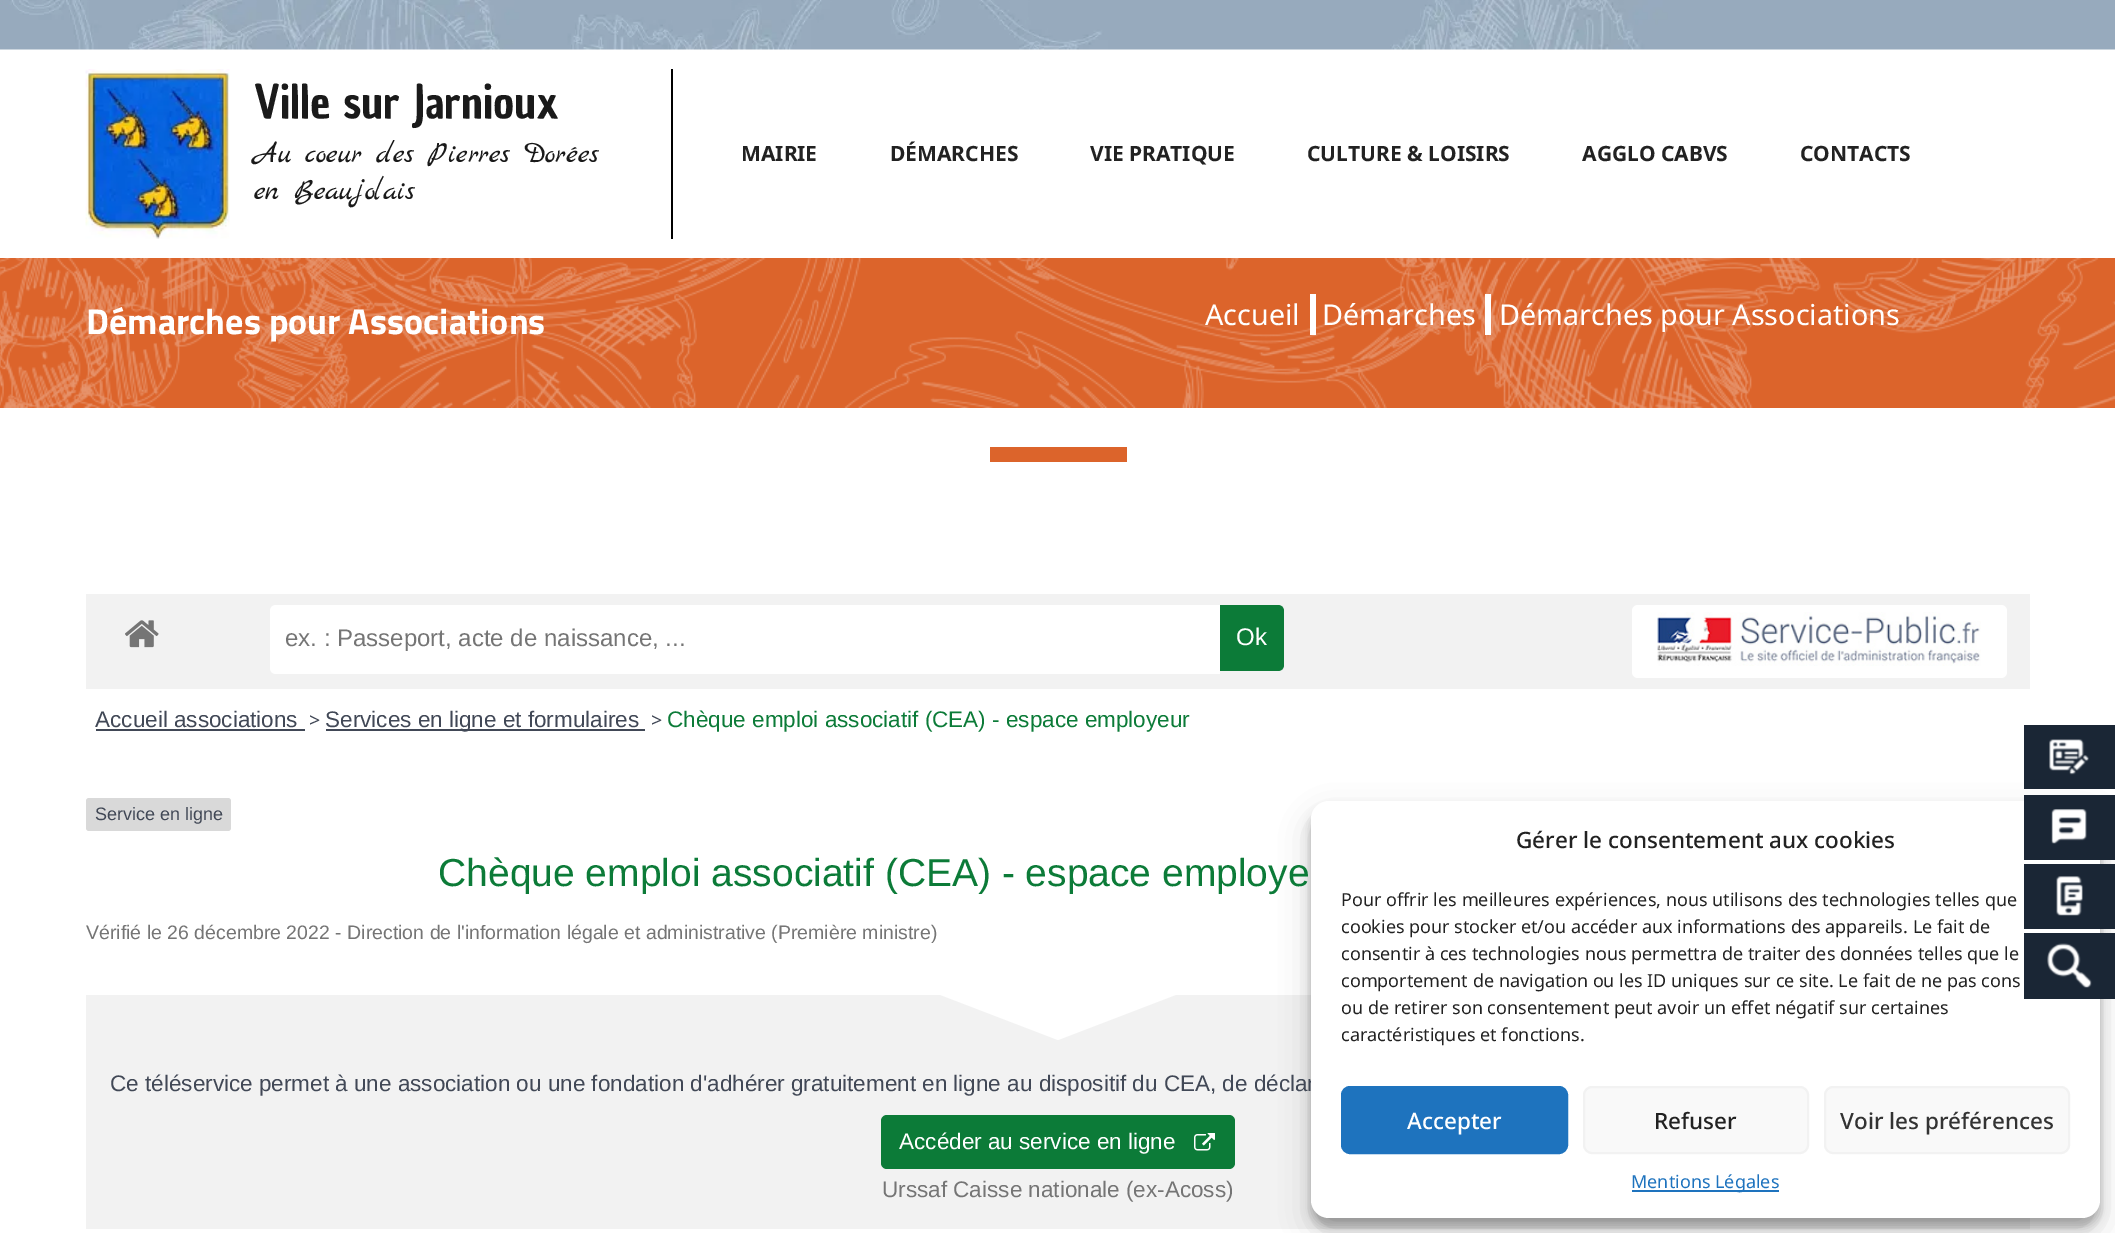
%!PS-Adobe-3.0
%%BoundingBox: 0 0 2115 1233
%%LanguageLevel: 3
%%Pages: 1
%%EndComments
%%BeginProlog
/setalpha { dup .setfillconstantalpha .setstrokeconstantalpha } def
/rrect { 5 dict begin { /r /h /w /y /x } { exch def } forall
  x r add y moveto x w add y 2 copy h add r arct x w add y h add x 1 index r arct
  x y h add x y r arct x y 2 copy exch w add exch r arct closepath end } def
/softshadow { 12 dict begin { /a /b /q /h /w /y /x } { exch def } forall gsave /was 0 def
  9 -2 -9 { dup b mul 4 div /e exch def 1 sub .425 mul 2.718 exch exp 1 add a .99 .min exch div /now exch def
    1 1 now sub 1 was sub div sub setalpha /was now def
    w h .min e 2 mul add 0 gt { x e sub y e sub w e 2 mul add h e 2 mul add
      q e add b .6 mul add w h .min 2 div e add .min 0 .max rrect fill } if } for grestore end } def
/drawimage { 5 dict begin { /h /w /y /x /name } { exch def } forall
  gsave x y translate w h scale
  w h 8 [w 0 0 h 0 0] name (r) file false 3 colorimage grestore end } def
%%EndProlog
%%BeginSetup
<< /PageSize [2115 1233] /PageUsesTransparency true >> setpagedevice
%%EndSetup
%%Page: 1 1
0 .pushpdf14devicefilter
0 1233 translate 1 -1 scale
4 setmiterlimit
1 setgray
0 0 2115 1233 rectfill
(images/1.raw) 0 0 2115 50 drawimage
(images/2.raw) 85 69 145 170 drawimage
0 setgray
671 69 2 170 rectfill
0.949 setgray
86 995 1944 234 rectfill
0 setgray
1311 816 789 417 18 15 0.19 softshadow
0.102 0.149 0.208 setrgbcolor
2024 725 91 64 rectfill
(images/3.raw) 2049 739 40 36 drawimage
0.863 0.392 0.169 setrgbcolor
0 258 2115 150 rectfill
(images/7.raw) 0 258 2115 150 drawimage
1 setgray
1310 294 6 41 rectfill
1485 294 6 41 rectfill
0.863 0.392 0.169 setrgbcolor
990 447 137 15 rectfill
0.949 setgray
86 594 1944 95 rectfill
(images/8.raw) 125 620 34 28 drawimage
1 setgray
newpath 276 605 moveto 1220 605 lineto 1220 674 lineto 276 674 lineto 272.5 674 270 671.5 270 668 curveto 270 611 lineto 270 607.5 272.5 605 276 605 curveto closepath fill
0.047 0.482 0.22 setrgbcolor
newpath 1220 605 moveto 1278 605 lineto 1281.5 605 1284 607.5 1284 611 curveto 1284 665 lineto 1284 668.5 1281.5 671 1278 671 curveto 1220 671 lineto closepath fill
1 setgray
1632 605 375 73 6 rrect fill
(images/9.raw) 1657 612 324 54 drawimage
0.255 0.282 0.337 setrgbcolor
96 729 209 2 rectfill
326 729 319 2 rectfill
0.851 setgray
86 798 145 33 3 rrect fill
1 setgray
newpath 938 994 moveto 1178 994 lineto 1058 1040 lineto closepath fill
0.047 0.482 0.22 setrgbcolor
881 1115 354 54 6 rrect fill
(images/10.raw) 1194 1133 21 18 drawimage
0 setgray
1311 810 789 417 18 4.5 0.23 softshadow
/ChauPhilomeneOne-Regular [45 0 0 -45 0 0] selectfont
0.102 setgray
254 118 moveto (Ville sur Jarnioux) show
/MarckScript-Regular [30 0 0 -30 0 0] selectfont
254 162 moveto (Au coeur des Pierres Dorées) show
254 199 moveto (en Beaujolais) show
/NotoSans-Bold [21 0 0 -21 0 0] selectfont
0.133 setgray
741 161 moveto (MAIRIE) show
890 161 moveto (DÉMARCHES) show
1090 161 moveto (VIE PRATIQUE) show
1307 161 moveto (CULTURE & LOISIRS) show
1582 161 moveto (AGGLO CABVS) show
1800 161 moveto (CONTACTS) show
/TitilliumWeb-Bold [36 0 0 -36 0 0] selectfont
1 setgray
86 334 moveto (Démarches pour Associations) show
/NotoSans-Regular [28.75 0 0 -28.75 0 0] selectfont
1205 325 moveto (Accueil) show
1322 325 moveto (Démarches) show
1499 325 moveto (Démarches pour Associations) show
/LiberationSans-Regular [24 0 0 -24 0 0] selectfont
0.459 setgray
285 646 moveto (ex. : Passeport, acte de naissance, ...) show
1 setgray
1236 645 moveto (Ok) show
/LiberationSans-Regular [22.5 0 0 -22.5 0 0] selectfont
0.255 0.282 0.337 setrgbcolor
95 727 moveto (Accueil associations) show
/NotoSans-Regular [19.5 0 0 -19.5 0 0] selectfont
309 727 moveto (>) show
/LiberationSans-Regular [22.5 0 0 -22.5 0 0] selectfont
325 727 moveto (Services en ligne et formulaires) show
/NotoSans-Regular [19.5 0 0 -19.5 0 0] selectfont
651 727 moveto (>) show
/LiberationSans-Regular [22.5 0 0 -22.5 0 0] selectfont
0.047 0.482 0.22 setrgbcolor
667 727 moveto (Chèque emploi associatif \(CEA\) - espace employeur) show
/LiberationSans-Regular [18 0 0 -18 0 0] selectfont
0.255 0.282 0.337 setrgbcolor
95 820 moveto (Service en ligne) show
/LiberationSans-Regular [39 0 0 -39 0 0] selectfont
0.047 0.482 0.22 setrgbcolor
438 886 moveto (Chèque emploi associatif \(CEA\) - espace employe) show
/LiberationSans-Regular [19.5 0 0 -19.5 0 0] selectfont
0.459 setgray
86 939 moveto (Vérifié le 26 décembre 2022 - Direction de l'information légale et administrative \(Première ministre\)) show
/LiberationSans-Regular [22.5 0 0 -22.5 0 0] selectfont
0.255 0.282 0.337 setrgbcolor
110 1091 moveto (Ce téléservice permet à une association ou une fondation d'adhérer gratuitement en ligne au dispositif du CEA, de déclar) show
1 setgray
899 1149 moveto (Accéder au service en ligne) show
0.459 setgray
882 1197 moveto (Urssaf Caisse nationale \(ex-Acoss\)) show
1 setgray
1311 801 789 417 18 rrect fill
0.102 0.149 0.208 setrgbcolor
2024 933 91 66 rectfill
(images/6.raw) 2047 943 45 45 drawimage
2024 864 91 65 rectfill
(images/5.raw) 2056 876 27 40 drawimage
2024 795 91 65 rectfill
(images/4.raw) 2051 809 36 35 drawimage
/NotoSans-Medium [22.5 0 0 -22.5 0 0] selectfont
0.133 setgray
1516 848 moveto (Gérer le consentement aux cookies) show
/NotoSans-Regular [18 0 0 -18 0 0] selectfont
1341 906 moveto (Pour offrir les meilleures expériences, nous utilisons des technologies telles que) show
1341 933 moveto (cookies pour stocker et/ou accéder aux informations des appareils. Le fait de) show
1341 960 moveto (consentir à ces technologies nous permettra de traiter des données telles que le) show
1341 987 moveto (comportement de navigation ou les ID uniques sur ce site. Le fait de ne pas cons) show
1341 1014 moveto (ou de retirer son consentement peut avoir un effet négatif sur certaines) show
1341 1041 moveto (caractéristiques et fonctions.) show
0.118 0.451 0.745 setrgbcolor
1342 1087 225 66 8 rrect gsave fill grestore
2 setlinewidth
stroke
/NotoSans-Medium [22.5 0 0 -22.5 0 0] selectfont
1 setgray
1407 1129 moveto (Accepter) show
0.976 setgray
1584 1087 224 66 8 rrect gsave fill grestore
0.949 setgray
stroke
0.133 setgray
1654 1129 moveto (Refuser) show
0.976 setgray
1825 1087 244 66 8 rrect gsave fill grestore
0.949 setgray
stroke
0.2 setgray
1840 1129 moveto (Voir les préférences) show
0.118 0.451 0.745 setrgbcolor
1632 1190 147 2 rectfill
/NotoSans-Regular [18 0 0 -18 0 0] selectfont
1631 1188 moveto (Mentions Légales) show
.poppdf14devicefilter showpage
%%EOF
